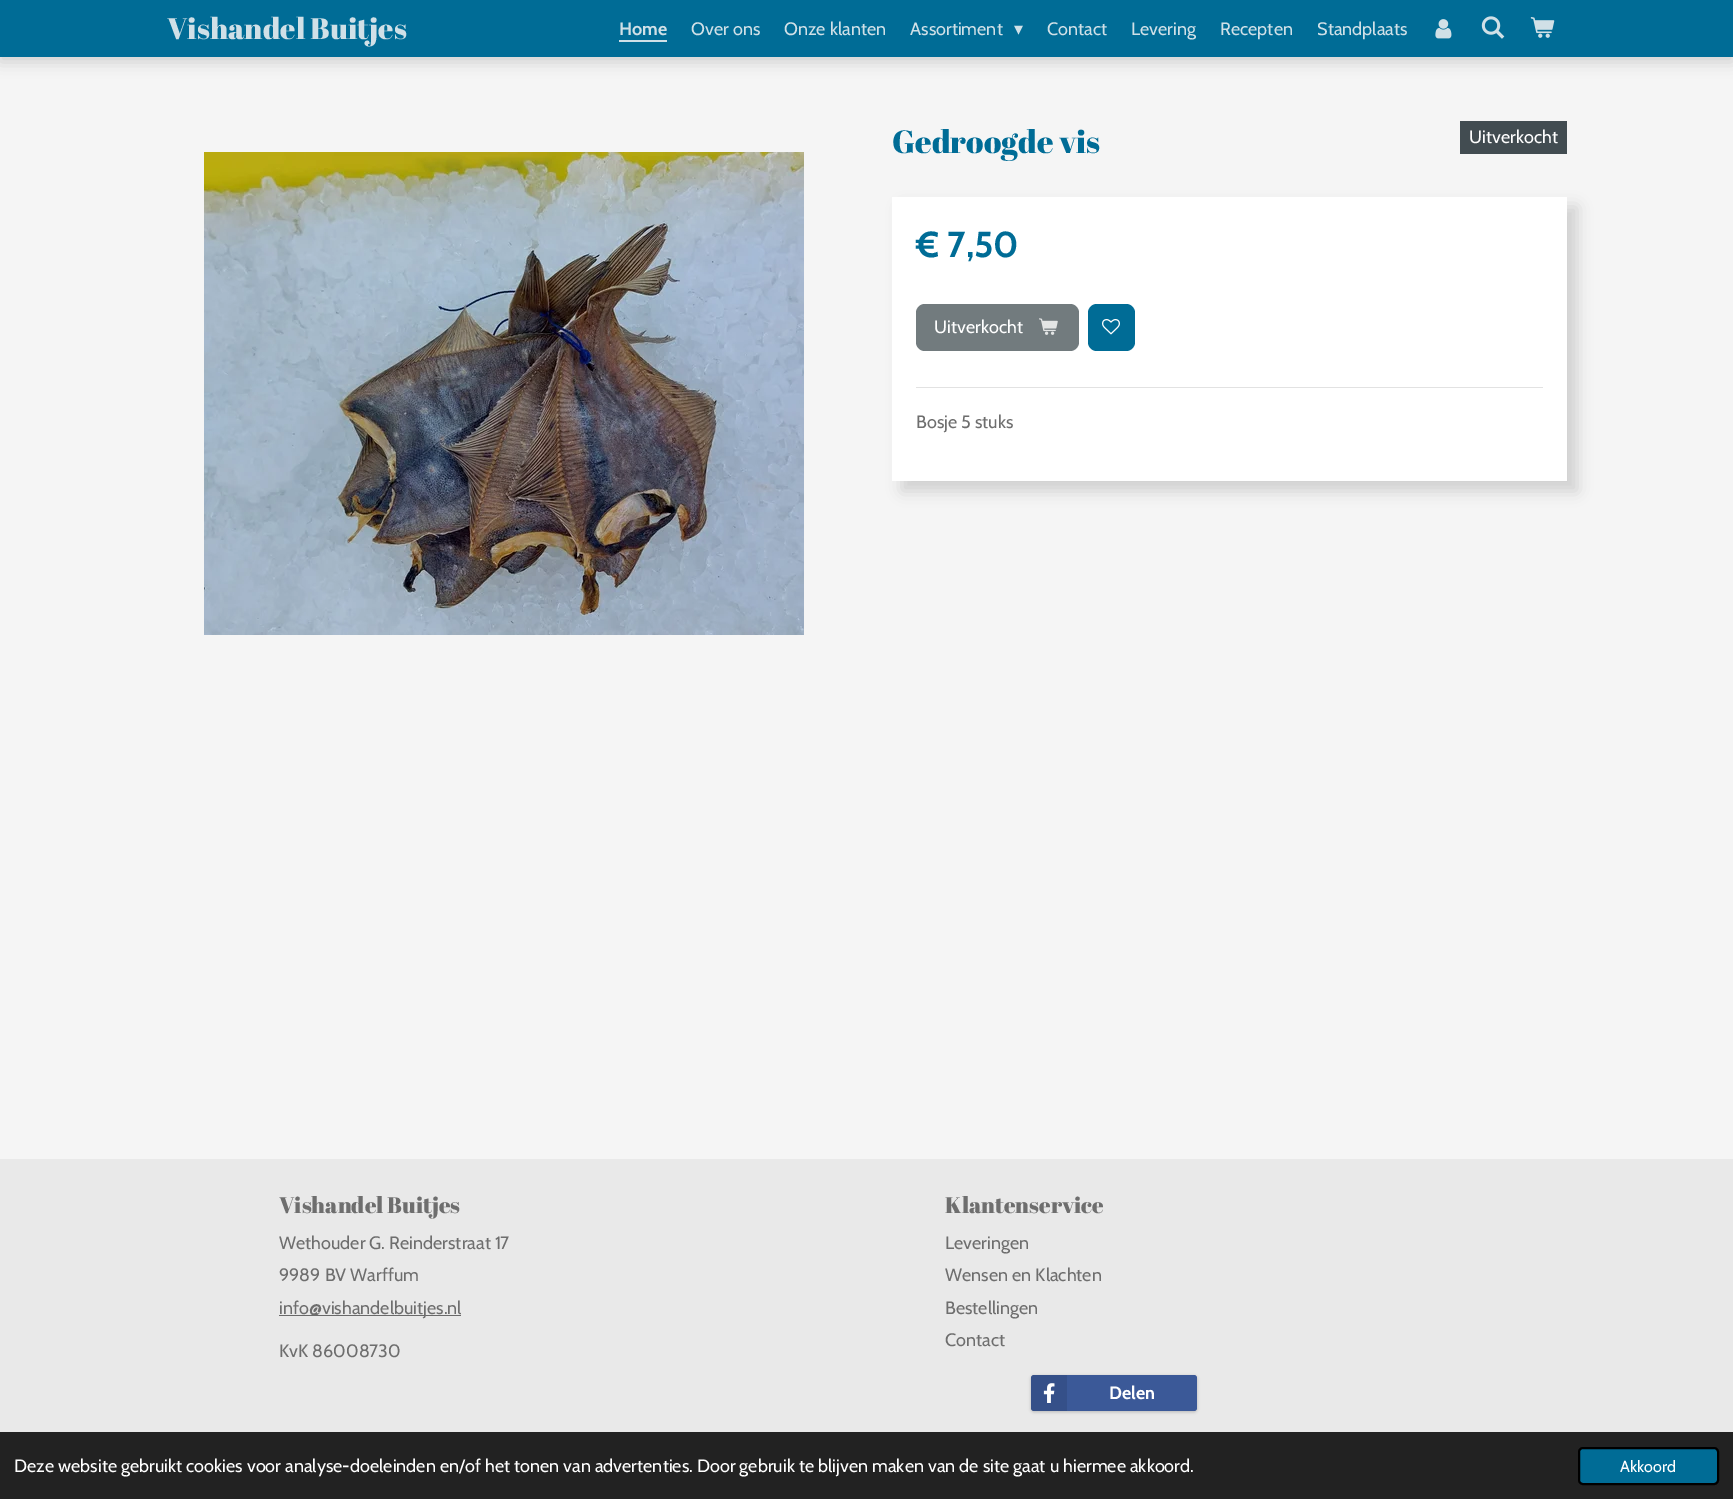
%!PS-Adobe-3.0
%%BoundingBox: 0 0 1733 1499
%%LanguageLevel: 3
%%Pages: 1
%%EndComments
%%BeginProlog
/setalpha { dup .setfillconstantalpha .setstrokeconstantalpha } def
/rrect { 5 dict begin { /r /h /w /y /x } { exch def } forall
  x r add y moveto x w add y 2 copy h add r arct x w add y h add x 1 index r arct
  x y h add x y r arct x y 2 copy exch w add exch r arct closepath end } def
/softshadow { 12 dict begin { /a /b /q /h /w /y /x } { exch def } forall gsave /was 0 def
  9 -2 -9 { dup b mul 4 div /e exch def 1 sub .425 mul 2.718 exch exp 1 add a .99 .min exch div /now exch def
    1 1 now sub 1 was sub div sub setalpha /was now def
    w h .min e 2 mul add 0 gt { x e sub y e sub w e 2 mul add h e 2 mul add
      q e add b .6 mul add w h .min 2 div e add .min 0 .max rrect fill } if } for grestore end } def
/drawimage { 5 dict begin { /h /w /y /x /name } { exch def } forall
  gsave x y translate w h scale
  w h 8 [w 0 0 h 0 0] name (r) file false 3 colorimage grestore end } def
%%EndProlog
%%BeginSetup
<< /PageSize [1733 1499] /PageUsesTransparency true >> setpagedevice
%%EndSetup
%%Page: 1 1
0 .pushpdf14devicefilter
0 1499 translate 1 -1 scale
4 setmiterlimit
0.961 setgray
0 0 1733 1499 rectfill
0 setgray
0 5 1733 57 0 7.5 0.15 softshadow
0 0.424 0.588 setrgbcolor
0 0 1733 57 rectfill
0.816 0.878 0.906 setrgbcolor
619 40 48 2 rectfill
(images/1.raw) 1435 19 17 20 drawimage
(images/2.raw) 1481 16 24 23 drawimage
(images/3.raw) 1530 17 25 21 drawimage
0.259 0.298 0.318 setrgbcolor
1460 121 107 33 rectfill
(images/4.raw) 204 152 600 483 drawimage
0 setgray
902 207 675 284 0 7.5 0.15 softshadow
1 setgray
892 197 675 284 rectfill
0.447 0.482 0.494 setrgbcolor
916 304 163 47 9 rrect fill
(images/5.raw) 1039 318 19 17 drawimage
0 0.424 0.588 setrgbcolor
1088 304 47 47 9 rrect fill
(images/6.raw) 1102 319 18 16 drawimage
0.886 setgray
916 387 627 1 rectfill
0.914 setgray
0 1159 1733 273 rectfill
0.412 setgray
279 1315 182 1 rectfill
0 setgray
1031 1376 166 36 3 1.5 0.2 softshadow
0.231 0.349 0.596 setrgbcolor
1031 1375 166 36 3 rrect fill
0.1 setalpha
0 setgray
newpath 1034 1375 moveto 1067 1375 lineto 1067 1411 lineto 1034 1411 lineto 1032.5 1411 1031 1409.5 1031 1408 curveto 1031 1378 lineto 1031 1376.5 1032.5 1375 1034 1375 curveto closepath fill
1 setalpha
(images/7.raw) 1043 1383 12 20 drawimage
0.133 setgray
0 1432 1733 67 rectfill
0 0.424 0.588 setrgbcolor
1579 1448 139 36 4 rrect gsave fill grestore
0 setgray
2 setlinewidth
stroke
/AbrilFatface-Regular [29.75 0 0 -29.75 0 0] selectfont
0.816 0.878 0.906 setrgbcolor
167 39 moveto (Vishandel Buitjes) show
/Cabin-Bold [18 0 0 -18 0 0] selectfont
619 35 moveto (Home) show
/Cabin-Regular [18 0 0 -18 0 0] selectfont
691 35 moveto (Over ons) show
784 35 moveto (Onze klanten) show
910 35 moveto (Assortiment) show
/DejaVuSans-Regular [18 0 0 -18 0 0] selectfont
1014 35 moveto (▾) show
/Cabin-Regular [18 0 0 -18 0 0] selectfont
1047 35 moveto (Contact) show
1131 35 moveto (Levering) show
1220 35 moveto (Recepten) show
1317 35 moveto (Standplaats) show
/AbrilFatface-Regular [32 0 0 -32 0 0] selectfont
0 0.424 0.588 setrgbcolor
892 153 moveto (Gedroogde vis) show
/Cabin-Regular [18 0 0 -18 0 0] selectfont
1 setgray
1469 143 moveto (Uitverkocht) show
/Cabin-Bold [36 0 0 -36 0 0] selectfont
0 0.424 0.588 setrgbcolor
916 257 moveto (€ 7,50) show
/Cabin-Regular [18 0 0 -18 0 0] selectfont
1 setgray
934 333 moveto (Uitverkocht) show
0.431 setgray
916 428 moveto (Bosje 5 stuks) show
/AbrilFatface-Regular [22.5 0 0 -22.5 0 0] selectfont
279 1213 moveto (Vishandel Buitjes) show
/Cabin-Regular [18 0 0 -18 0 0] selectfont
279 1249 moveto (Wethouder G. Reinderstraat 17) show
279 1281 moveto (9989 BV Warffum) show
279 1314 moveto (info@vishandelbuitjes.nl) show
279 1357 moveto (KvK 86008730) show
/AbrilFatface-Regular [22.5 0 0 -22.5 0 0] selectfont
945 1213 moveto (Klantenservice) show
/Cabin-Regular [18 0 0 -18 0 0] selectfont
945 1249 moveto (Leveringen) show
945 1281 moveto (Wensen en Klachten) show
945 1314 moveto (Bestellingen) show
945 1346 moveto (Contact) show
/Cabin-Bold [18 0 0 -18 0 0] selectfont
1 setgray
1109 1399 moveto (Delen) show
/Cabin-Regular [18 0 0 -18 0 0] selectfont
14 1472 moveto (Deze website gebruikt cookies voor analyse-doeleinden en/of het tonen van advertenties. Door gebruik te blijven maken van de site gaat u hiermee akkoord.) show
/Cabin-Regular [16 0 0 -16 0 0] selectfont
1620 1472 moveto (Akkoord) show
.poppdf14devicefilter showpage
%%EOF
